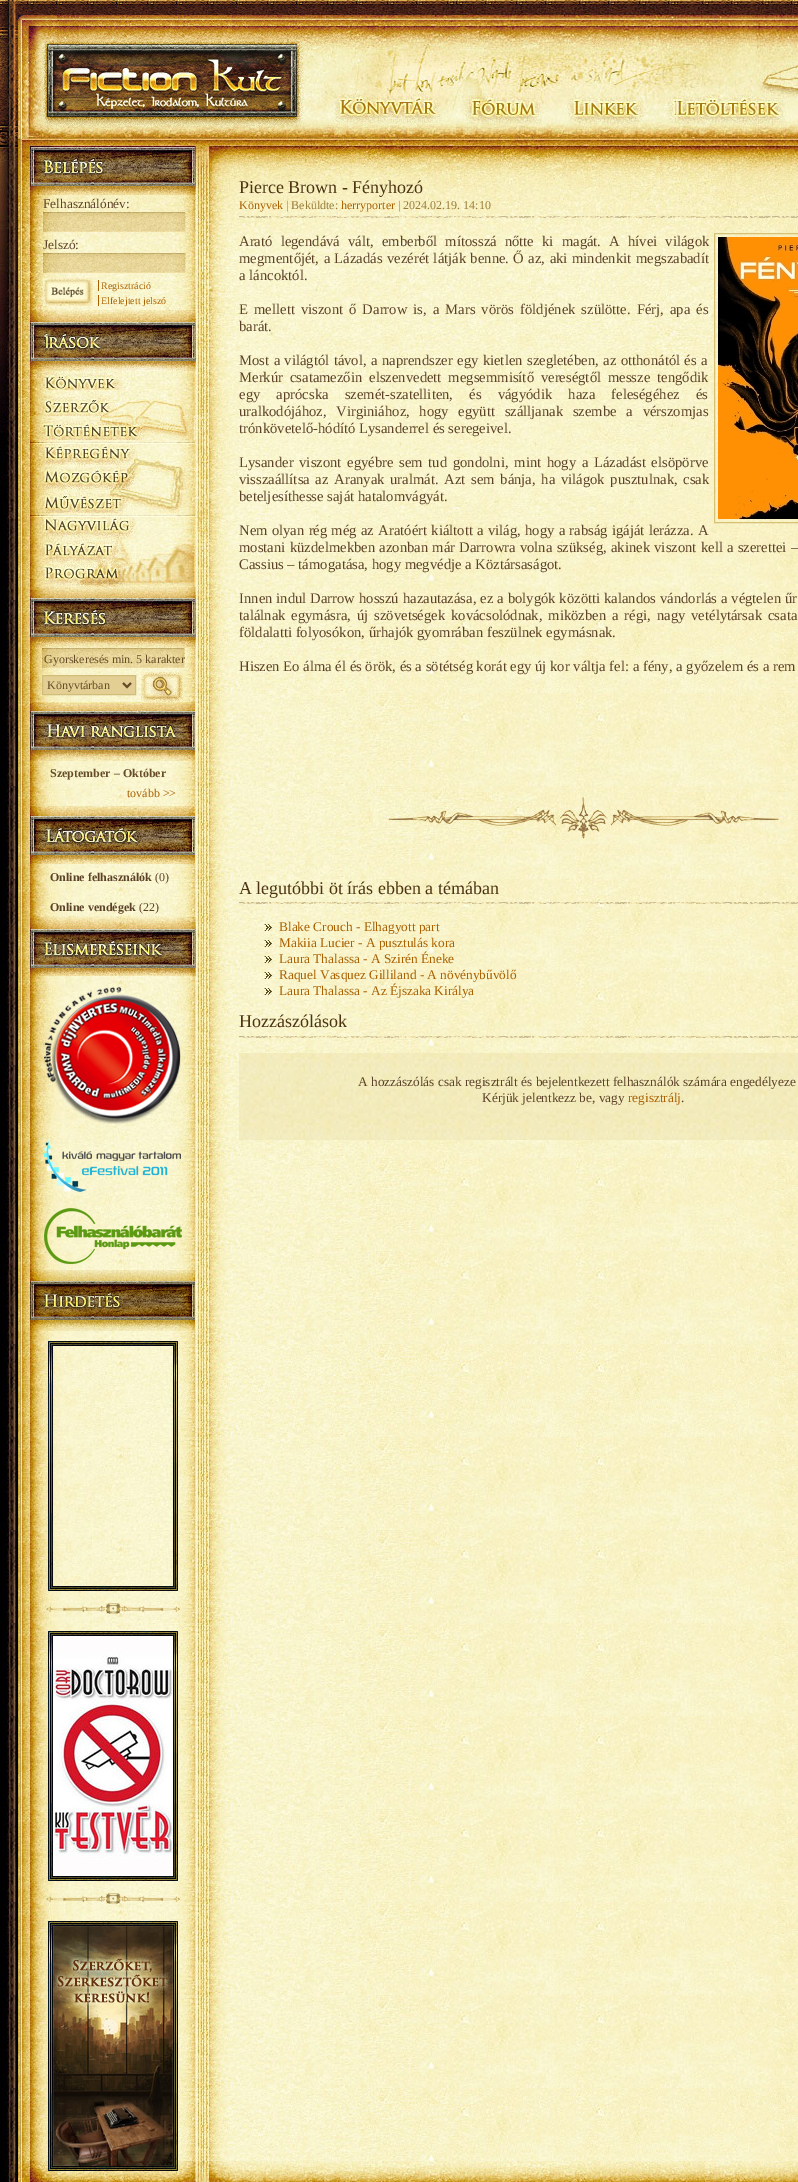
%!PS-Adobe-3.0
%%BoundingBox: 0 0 798 2182
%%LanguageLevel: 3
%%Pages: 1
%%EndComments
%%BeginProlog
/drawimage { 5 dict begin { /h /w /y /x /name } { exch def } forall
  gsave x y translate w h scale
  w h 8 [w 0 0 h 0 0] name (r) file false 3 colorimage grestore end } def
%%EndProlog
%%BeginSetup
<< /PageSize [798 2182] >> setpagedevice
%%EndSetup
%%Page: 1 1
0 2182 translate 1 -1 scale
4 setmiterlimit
1 setgray
0 0 798 2182 rectfill
(images/1.raw) 0 0 311 135 drawimage
(images/2.raw) 311 0 149 135 drawimage
(images/3.raw) 460 0 108 135 drawimage
(images/4.raw) 568 0 108 135 drawimage
(images/5.raw) 676 0 122 135 drawimage
(images/6.raw) 0 549 798 1612 drawimage
(images/7.raw) 0 135 798 414 drawimage
(images/8.raw) 0 2161 798 21 drawimage
(images/9.raw) 30 146 166 49 drawimage
(images/10.raw) 43 212 143 20 drawimage
(images/10.raw) 43 253 143 20 drawimage
(images/11.raw) 43 278 50 28 drawimage
0.667 0.38 0.008 setrgbcolor
98 280 1 11 rectfill
98 295 1 11 rectfill
(images/12.raw) 30 310 166 61 drawimage
(images/13.raw) 30 371 165 19 drawimage
(images/14.raw) 30 390 165 26 drawimage
(images/15.raw) 30 416 165 24 drawimage
(images/17.raw) 30 440 165 25 drawimage
(images/16.raw) 30 442 166 2 drawimage
(images/18.raw) 30 465 165 25 drawimage
(images/19.raw) 30 490 165 23 drawimage
(images/20.raw) 30 513 165 26 drawimage
(images/16.raw) 30 515 166 2 drawimage
(images/21.raw) 30 539 165 25 drawimage
(images/22.raw) 30 564 165 23 drawimage
(images/23.raw) 30 587 166 61 drawimage
(images/10.raw) 42 648 143 20 drawimage
0.89 0.812 0.576 setrgbcolor
newpath 42.5 675.5 moveto 135.5 675.5 lineto 135.5 694.5 lineto 42.5 694.5 lineto closepath gsave fill grestore
0.816 0.741 0.478 setrgbcolor
stroke
0.4 0.302 0.157 setrgbcolor
2 setlinewidth
newpath 123 683 moveto 127 687 lineto 131 683 lineto stroke
(images/24.raw) 141 672 42 30 drawimage
(images/25.raw) 30 702 165 59 drawimage
(images/26.raw) 30 806 165 58 drawimage
(images/27.raw) 30 915 166 61 drawimage
(images/28.raw) 43 986 140 138 drawimage
(images/29.raw) 44 1139 137 53 drawimage
(images/30.raw) 44 1208 138 56 drawimage
(images/31.raw) 30 1270 165 61 drawimage
(images/32.raw) 48 1341 130 250 drawimage
(images/33.raw) 45 1601 137 16 drawimage
(images/32.raw) 48 1631 130 250 drawimage
(images/34.raw) 53 1636 120 240 drawimage
(images/33.raw) 45 1891 137 16 drawimage
(images/32.raw) 48 1921 130 250 drawimage
(images/35.raw) 53 1926 120 240 drawimage
(images/36.raw) 239 216 559 2 drawimage
0.839 0.757 0.463 setrgbcolor
1 setlinewidth
714.5 233.5 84 289 rectstroke
(images/37.raw) 718 237 80 282 drawimage
(images/38.raw) 373 792 421 52 drawimage
(images/36.raw) 239 902 559 2 drawimage
(images/39.raw) 264 924 8 7 drawimage
(images/39.raw) 264 940 8 7 drawimage
(images/39.raw) 264 956 8 7 drawimage
(images/39.raw) 264 972 8 7 drawimage
(images/39.raw) 264 988 8 7 drawimage
(images/36.raw) 239 1036 559 2 drawimage
(images/40.raw) 239 1053 559 87 drawimage
/LiberationSerif-Regular [13.3 0 0 -13.3 0 0] selectfont
0.361 0.259 0.157 setrgbcolor
43 208 moveto (Felhasználónév:) show
43 249 moveto (Jelszó:) show
/LiberationSerif-Regular [10 0 0 -10 0 0] selectfont
0.667 0.38 0.008 setrgbcolor
101 289 moveto (Regisztráció) show
101 304 moveto (Elfelejtett jelszó) show
/LiberationSerif-Regular [12 0 0 -12 0 0] selectfont
0.4 0.302 0.157 setrgbcolor
44 663 moveto (Gyorskeresés min. 5 karakter) show
47 689 moveto (Könyvtárban) show
/LiberationSerif-Bold [12 0 0 -12 0 0] selectfont
50 777 moveto (Szeptember – Október) show
/LiberationSerif-Regular [12 0 0 -12 0 0] selectfont
0.667 0.38 0.008 setrgbcolor
127 797 moveto (tovább >>) show
/LiberationSerif-Bold [12 0 0 -12 0 0] selectfont
0.361 0.259 0.157 setrgbcolor
50 881 moveto (Online felhasználók) show
/LiberationSerif-Regular [12 0 0 -12 0 0] selectfont
155 881 moveto (\(0\)) show
/LiberationSerif-Bold [12 0 0 -12 0 0] selectfont
50 911 moveto (Online vendégek) show
/LiberationSerif-Regular [12 0 0 -12 0 0] selectfont
139 911 moveto (\(22\)) show
/LiberationSerif-Regular [18 0 0 -18 0 0] selectfont
0.298 0.204 0.071 setrgbcolor
239 193 moveto (Pierce Brown - Fényhozó) show
/LiberationSerif-Regular [12 0 0 -12 0 0] selectfont
0.667 0.38 0.008 setrgbcolor
239 209 moveto (Könyvek) show
0.604 0.486 0.227 setrgbcolor
286 209 moveto (| Beküldte:) show
0.667 0.38 0.008 setrgbcolor
341 209 moveto (herryporter) show
0.604 0.486 0.227 setrgbcolor
398 209 moveto (| 2024.02.19. 14:10) show
/LiberationSerif-Regular [14.65 0 0 -14.65 0 0] selectfont
0.361 0.259 0.157 setrgbcolor
239 246 moveto 4.5 0 32 (Arató legendává vált, emberből mítosszá nőtte ki magát. A hívei világok) widthshow
239 263 moveto 0.75 0 32 (megmentőjét, a Lázadás vezérét látják benne. Ő az, aki mindenkit megszabadít) widthshow
239 280 moveto (a láncoktól.) show
239 314 moveto 2.4 0 32 (E mellett viszont ő Darrow is, a Mars vörös földjének szülötte. Férj, apa és) widthshow
239 331 moveto (barát.) show
239 365 moveto 0.75 0 32 (Most a világtól távol, a naprendszer egy kietlen szegletében, az otthonától és a) widthshow
239 382 moveto 3.25 0 32 (Merkúr csatamezőin elszenvedett megsemmisítő vereségtől messze tengődik) widthshow
239 399 moveto 12.5 0 32 (egy aprócska szemét-szatelliten, és vágyódik haza feleségéhez és) widthshow
239 416 moveto 6 0 32 (uralkodójához, Virginiához, hogy együtt szálljanak szembe a vérszomjas) widthshow
239 433 moveto (trónkövetelő-hódító Lysanderrel és seregeivel.) show
239 467 moveto 2 0 32 (Lysander viszont egyébre sem tud gondolni, mint hogy a Lázadást elsöpörve) widthshow
239 484 moveto 2 0 32 (visszaállítsa az Aranyak uralmát. Azt sem bánja, ha világok pusztulnak, csak) widthshow
239 501 moveto (beteljesíthesse saját hatalomvágyát.) show
239 535 moveto 0.6 0 32 (Nem olyan rég még az Aratóért kiáltott a világ, hogy a rabság igáját lerázza. A) widthshow
239 552 moveto 0.6 0 32 (mostani küzdelmekben azonban már Darrowra volna szükség, akinek viszont kell a szerettei –) widthshow
239 569 moveto (Cassius – támogatása, hogy megvédje a Köztársaságot.) show
239 603 moveto 0.25 0 32 (Innen indul Darrow hosszú hazautazása, ez a bolygók közötti kalandos vándorlás a végtelen űr) widthshow
239 620 moveto 2.25 0 32 (találnak egymásra, új szövetségek kovácsolódnak, miközben a régi, nagy vetélytársak csata) widthshow
239 637 moveto (földalatti folyosókon, űrhajók gyomrában feszülnek egymásnak.) show
239 671 moveto (Hiszen Eo álma él és örök, és a sötétség korát egy új kor váltja fel: a fény, a győzelem és a rem) show
/LiberationSerif-Regular [18 0 0 -18 0 0] selectfont
0.298 0.204 0.071 setrgbcolor
239 894 moveto (A legutóbbi öt írás ebben a témában) show
/LiberationSerif-Regular [13.3 0 0 -13.3 0 0] selectfont
0.667 0.38 0.008 setrgbcolor
279 931 moveto (Blake Crouch - Elhagyott part) show
279 947 moveto (Makiia Lucier - A pusztulás kora) show
279 963 moveto (Laura Thalassa - A Szirén Éneke) show
279 979 moveto (Raquel Vasquez Gilliland - A növénybűvölő) show
279 995 moveto (Laura Thalassa - Az Éjszaka Királya) show
/LiberationSerif-Regular [18 0 0 -18 0 0] selectfont
0.298 0.204 0.071 setrgbcolor
239 1027 moveto (Hozzászólások) show
/LiberationSerif-Regular [13.3 0 0 -13.3 0 0] selectfont
0.361 0.259 0.157 setrgbcolor
358 1086 moveto (A hozzászólás csak regisztrált és bejelentkezett felhasználók számára engedélyeze) show
482 1102 moveto (Kérjük jelentkezz be, vagy) show
0.667 0.38 0.008 setrgbcolor
628 1102 moveto (regisztrálj) show
0.361 0.259 0.157 setrgbcolor
681 1102 moveto (.) show
showpage
%%EOF
